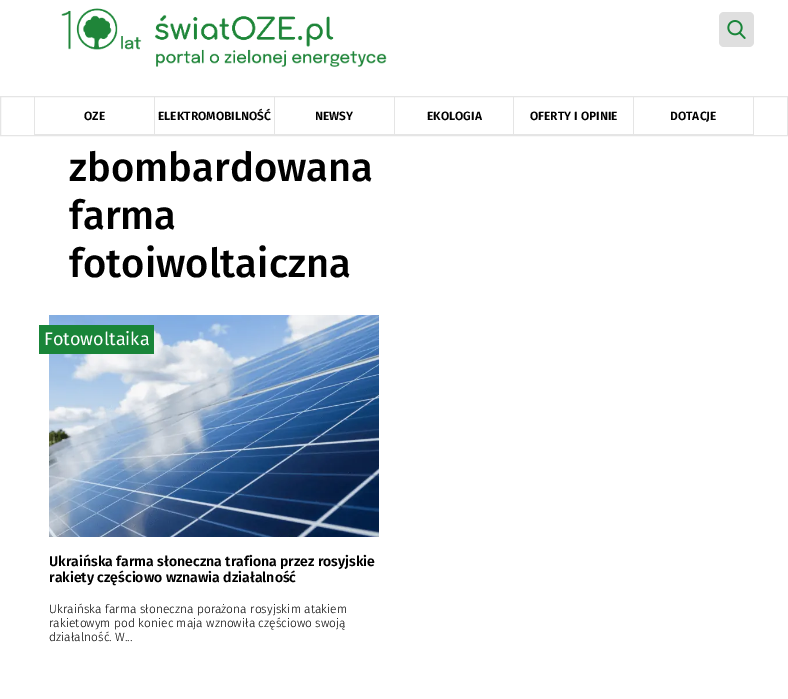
%!PS-Adobe-3.0
%%BoundingBox: 0 0 788 699
%%LanguageLevel: 3
%%Pages: 1
%%EndComments
%%BeginProlog
/rrect { 5 dict begin { /r /h /w /y /x } { exch def } forall
  x r add y moveto x w add y 2 copy h add r arct x w add y h add x 1 index r arct
  x y h add x y r arct x y 2 copy exch w add exch r arct closepath end } def
/drawimage { 5 dict begin { /h /w /y /x /name } { exch def } forall
  gsave x y translate w h scale
  w h 8 [w 0 0 h 0 0] name (r) file false 3 colorimage grestore end } def
%%EndProlog
%%BeginSetup
<< /PageSize [788 699] >> setpagedevice
%%EndSetup
%%Page: 1 1
0 699 translate 1 -1 scale
4 setmiterlimit
1 setgray
0 0 788 699 rectfill
(images/1.raw) 61 8 326 59 drawimage
0.875 setgray
719 12 35 35 5 rrect fill
(images/2.raw) 727 20 19 19 drawimage
0.898 setgray
0.5 96.5 787 39 rectstroke
34 134 720 1 rectfill
34 97 1 37 rectfill
154 97 1 37 rectfill
274 97 1 37 rectfill
394 97 1 37 rectfill
513 97 1 37 rectfill
753 97 1 37 rectfill
633 97 1 37 rectfill
(images/3.raw) 49 315 330 222 drawimage
0.098 0.522 0.224 setrgbcolor
39 325 115 29 rectfill
/FiraSans-SemiBold [12 0 0 -12 0 0] selectfont
0 setgray
84 120 moveto (OZE) show
158 120 moveto (ELEKTROMOBILNOŚĆ) show
315 120 moveto (NEWSY) show
427 120 moveto (EKOLOGIA) show
530 120 moveto (OFERTY I OPINIE) show
670 120 moveto (DOTACJE) show
/FiraSans-Medium [40 0 0 -40 0 0] selectfont
69 181 moveto (zbombardowana) show
69 229 moveto (farma) show
69 277 moveto (fotoiwoltaiczna) show
/FiraSans-Regular [18 0 0 -18 0 0] selectfont
1 setgray
44 345 moveto (Fotowoltaika) show
/FiraSans-SemiBold [14 0 0 -14 0 0] selectfont
0 setgray
49 566 moveto (Ukraińska farma słoneczna trafiona przez rosyjskie) show
49 582 moveto (rakiety częściowo wznawia działalność) show
/FiraSans-Light [12 0 0 -12 0 0] selectfont
49 613 moveto (Ukraińska farma słoneczna porażona rosyjskim atakiem) show
49 627 moveto (rakietowym pod koniec maja wznowiła częściowo swoją) show
49 641 moveto (działalność. W...) show
showpage
%%EOF
